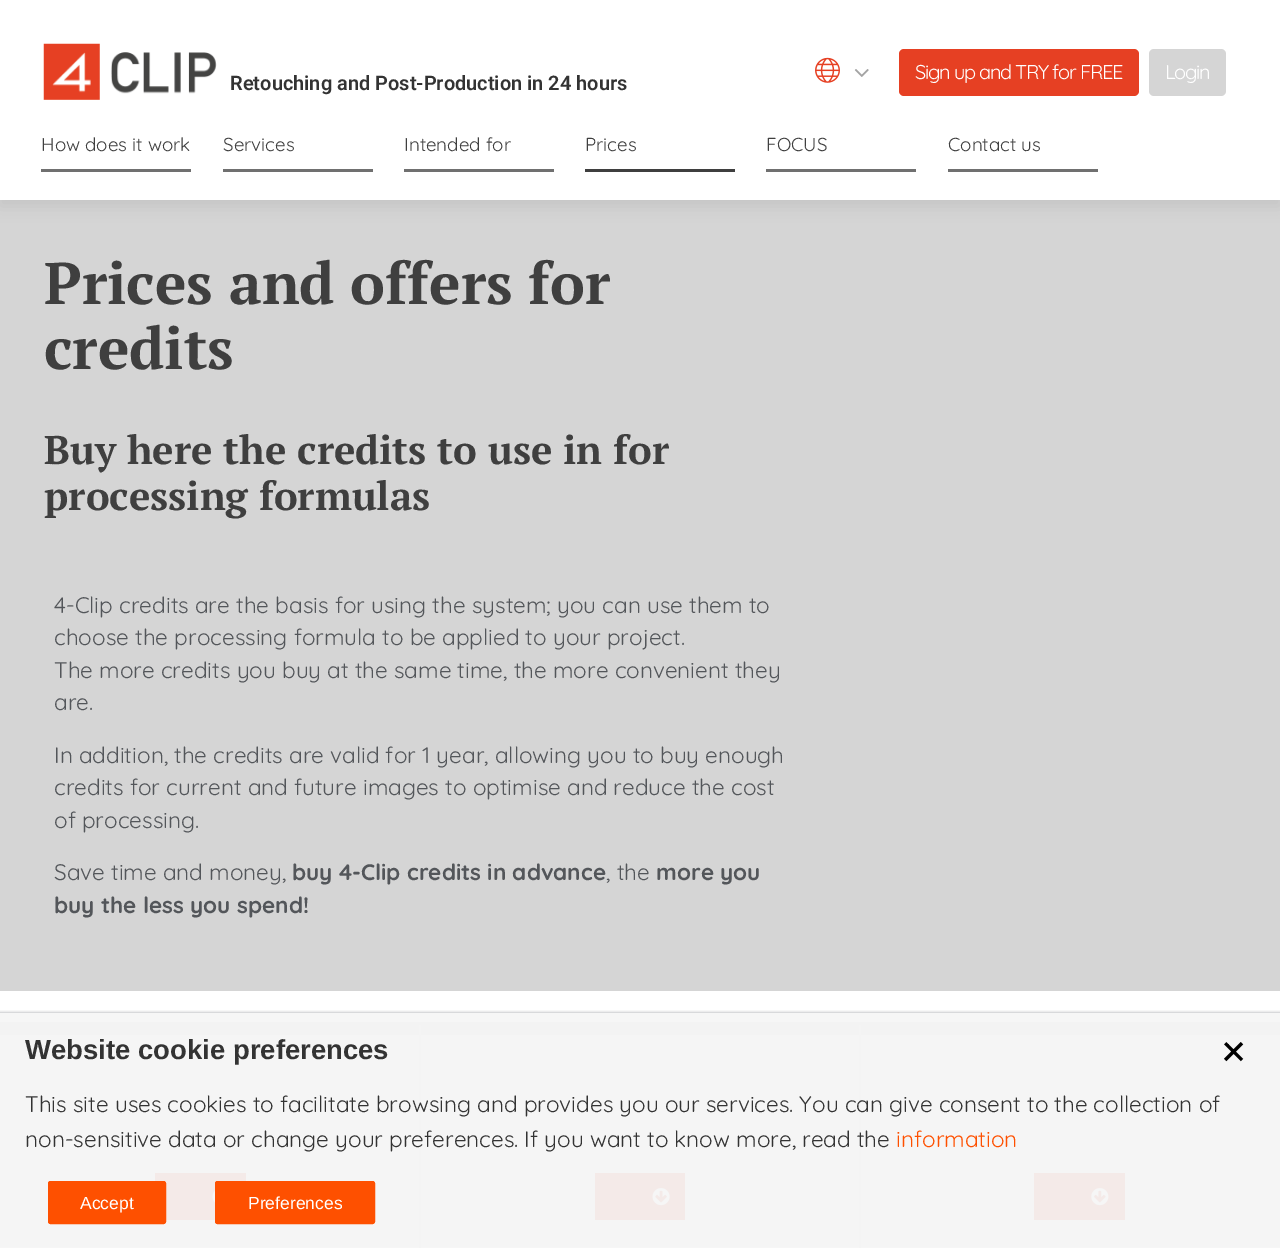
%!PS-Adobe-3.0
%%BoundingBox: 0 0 1280 1248
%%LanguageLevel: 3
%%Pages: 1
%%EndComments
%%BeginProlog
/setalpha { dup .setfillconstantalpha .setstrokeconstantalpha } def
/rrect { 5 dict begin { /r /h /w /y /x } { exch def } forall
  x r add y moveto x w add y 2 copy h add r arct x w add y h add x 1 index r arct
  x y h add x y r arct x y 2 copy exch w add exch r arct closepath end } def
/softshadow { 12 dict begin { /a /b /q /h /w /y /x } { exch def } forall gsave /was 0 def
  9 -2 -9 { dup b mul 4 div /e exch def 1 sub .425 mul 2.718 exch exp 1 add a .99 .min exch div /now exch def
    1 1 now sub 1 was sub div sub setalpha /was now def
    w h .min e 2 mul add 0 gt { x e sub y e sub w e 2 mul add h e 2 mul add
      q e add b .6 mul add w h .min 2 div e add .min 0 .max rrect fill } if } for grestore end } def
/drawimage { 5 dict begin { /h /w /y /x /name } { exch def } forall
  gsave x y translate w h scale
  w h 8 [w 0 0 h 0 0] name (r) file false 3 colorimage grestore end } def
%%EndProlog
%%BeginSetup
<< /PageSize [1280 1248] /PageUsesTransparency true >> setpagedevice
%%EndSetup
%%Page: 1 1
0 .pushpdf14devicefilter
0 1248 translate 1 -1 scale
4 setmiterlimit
0.835 setgray
0 0 1280 1248 rectfill
0.196 setgray
0 6 1280 200 0 7.5 0.1 softshadow
1 setgray
0 0 1280 200 rectfill
(images/1.raw) 43 43 174 57 drawimage
(images/2.raw) 815 57 25 26 drawimage
(images/3.raw) 854 69 15 8 drawimage
0.902 0.251 0.137 setrgbcolor
899 49 240 47 5 rrect fill
0.835 setgray
1149 49 77 47 5 rrect fill
0.439 setgray
41 169 150 3 rectfill
223 169 150 3 rectfill
404 169 150 3 rectfill
0.247 setgray
585 169 150 3 rectfill
0.439 setgray
766 169 150 3 rectfill
948 169 150 3 rectfill
1 setgray
0 991 1280 22 rectfill
0.965 setgray
0 1013 1280 22 rectfill
gsave newpath 0 1035 moveto 419 1035 lineto 419 1248 lineto 0 1248 lineto closepath clip newpath
<< /ShadingType 2 /ColorSpace /DeviceRGB /Coords [201 1035 201 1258] /Extend [true true] /Function << /FunctionType 2 /Domain [0 1] /C0 [0.961 0.961 0.961] /C1 [0.965 0.965 0.965] /N 1 >> >> shfill grestore
0.953 setgray
newpath -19 1022 moveto 420 1022 lineto 419 1035 lineto -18 1035 lineto closepath fill
0.957 setgray
newpath 420 1022 moveto 420 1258 lineto 419 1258 lineto 419 1035 lineto closepath fill
0.957 0.918 0.91 setrgbcolor
155 1173 91 47 rectfill
(images/4.raw) 212 1190 3 13 drawimage
gsave newpath 421 1035 moveto 859 1035 lineto 859 1248 lineto 421 1248 lineto closepath clip newpath
<< /ShadingType 2 /ColorSpace /DeviceRGB /Coords [640 1035 640 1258] /Extend [true true] /Function << /FunctionType 2 /Domain [0 1] /C0 [0.961 0.961 0.961] /C1 [0.965 0.965 0.965] /N 1 >> >> shfill grestore
0.953 setgray
newpath 420 1022 moveto 860 1022 lineto 859 1035 lineto 421 1035 lineto closepath fill
0.957 setgray
newpath 860 1022 moveto 860 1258 lineto 859 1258 lineto 859 1035 lineto closepath fill
newpath 420 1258 moveto 420 1022 lineto 421 1035 lineto 421 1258 lineto closepath fill
0.957 0.918 0.91 setrgbcolor
595 1173 90 47 rectfill
(images/5.raw) 652 1188 18 18 drawimage
gsave newpath 861 1035 moveto 1280 1035 lineto 1280 1248 lineto 861 1248 lineto closepath clip newpath
<< /ShadingType 2 /ColorSpace /DeviceRGB /Coords [1079 1035 1079 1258] /Extend [true true] /Function << /FunctionType 2 /Domain [0 1] /C0 [0.961 0.961 0.961] /C1 [0.965 0.965 0.965] /N 1 >> >> shfill grestore
0.953 setgray
newpath 860 1022 moveto 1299 1022 lineto 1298 1035 lineto 861 1035 lineto closepath fill
0.957 setgray
newpath 860 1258 moveto 860 1022 lineto 861 1035 lineto 861 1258 lineto closepath fill
0.957 0.918 0.91 setrgbcolor
1034 1173 91 47 rectfill
(images/6.raw) 1091 1188 18 18 drawimage
gsave
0 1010 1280 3 rectclip
0.129 0.161 0.204 setrgbcolor
0 1014 1280 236 0 2 0.75 softshadow
grestore
0.996 0.314 0 setrgbcolor
48.5 1181.5 117 42 2 rrect gsave fill grestore
stroke
215.5 1181.5 159 42 2 rrect gsave fill grestore
stroke
/Roboto-SemiBold [20 0 0 -20 0 0] selectfont
0.2 setgray
230 90 moveto (Retouching and Post-Production in 24 hours) show
/Quicksand-Regular [20 0 0 -20 0 0] selectfont
1 setgray
915 79 moveto -1.25 0 (Sign up and TRY for FREE) ashow
1165 79 moveto -1.25 0 (Login) ashow
/Quicksand-Regular [18.75 0 0 -18.75 0 0] selectfont
0.247 setgray
41 151 moveto (How does it work) show
223 151 moveto (Services) show
404 151 moveto (Intended for) show
585 151 moveto (Prices) show
766 151 moveto (FOCUS) show
948 151 moveto (Contact us) show
/PTSerif-Bold [58.75 0 0 -58.75 0 0] selectfont
44 304 moveto (Prices and offers for) show
44 369 moveto (credits) show
/PTSerif-Bold [40 0 0 -40 0 0] selectfont
44 464 moveto (Buy here the credits to use in for) show
44 510 moveto (processing formulas) show
/Quicksand-Regular [22.5 0 0 -22.5 0 0] selectfont
0.325 0.337 0.353 setrgbcolor
54 613 moveto (4-Clip credits are the basis for using the system; you can use them to) show
54 645 moveto (choose the processing formula to be applied to your project.) show
54 678 moveto (The more credits you buy at the same time, the more convenient they) show
54 710 moveto (are.) show
54 763 moveto (In addition, the credits are valid for 1 year, allowing you to buy enough) show
54 795 moveto (credits for current and future images to optimise and reduce the cost) show
54 828 moveto (of processing.) show
54 880 moveto (Save time and money,) show
/Quicksand-Bold [22.5 0 0 -22.5 0 0] selectfont
292 880 moveto (buy 4-Clip credits in advance) show
/Quicksand-Regular [22.5 0 0 -22.5 0 0] selectfont
606 880 moveto (, the) show
/Quicksand-Bold [22.5 0 0 -22.5 0 0] selectfont
656 880 moveto (more you) show
54 913 moveto (buy the less you spend!) show
/LiberationSans-Bold [27.5 0 0 -27.5 0 0] selectfont
0.2 setgray
25 1059 moveto (Website cookie preferences) show
/LiberationSans-Regular [49 0 0 -49 0 0] selectfont
0 setgray
gsave 1212 1053 translate 45 rotate 0 0 moveto (+) show grestore
/Quicksand-Regular [22.5 0 0 -22.5 0 0] selectfont
0.2 setgray
25 1112 moveto (This site uses cookies to facilitate browsing and provides you our services. You can give consent to the collection of) show
25 1147 moveto (non-sensitive data or change your preferences. If you want to know more, read the) show
0.996 0.314 0 setrgbcolor
896 1147 moveto (information) show
/LiberationSans-Regular [17.5 0 0 -17.5 0 0] selectfont
1 setgray
80 1209 moveto (Accept) show
248 1209 moveto (Preferences) show
.poppdf14devicefilter showpage
%%EOF
